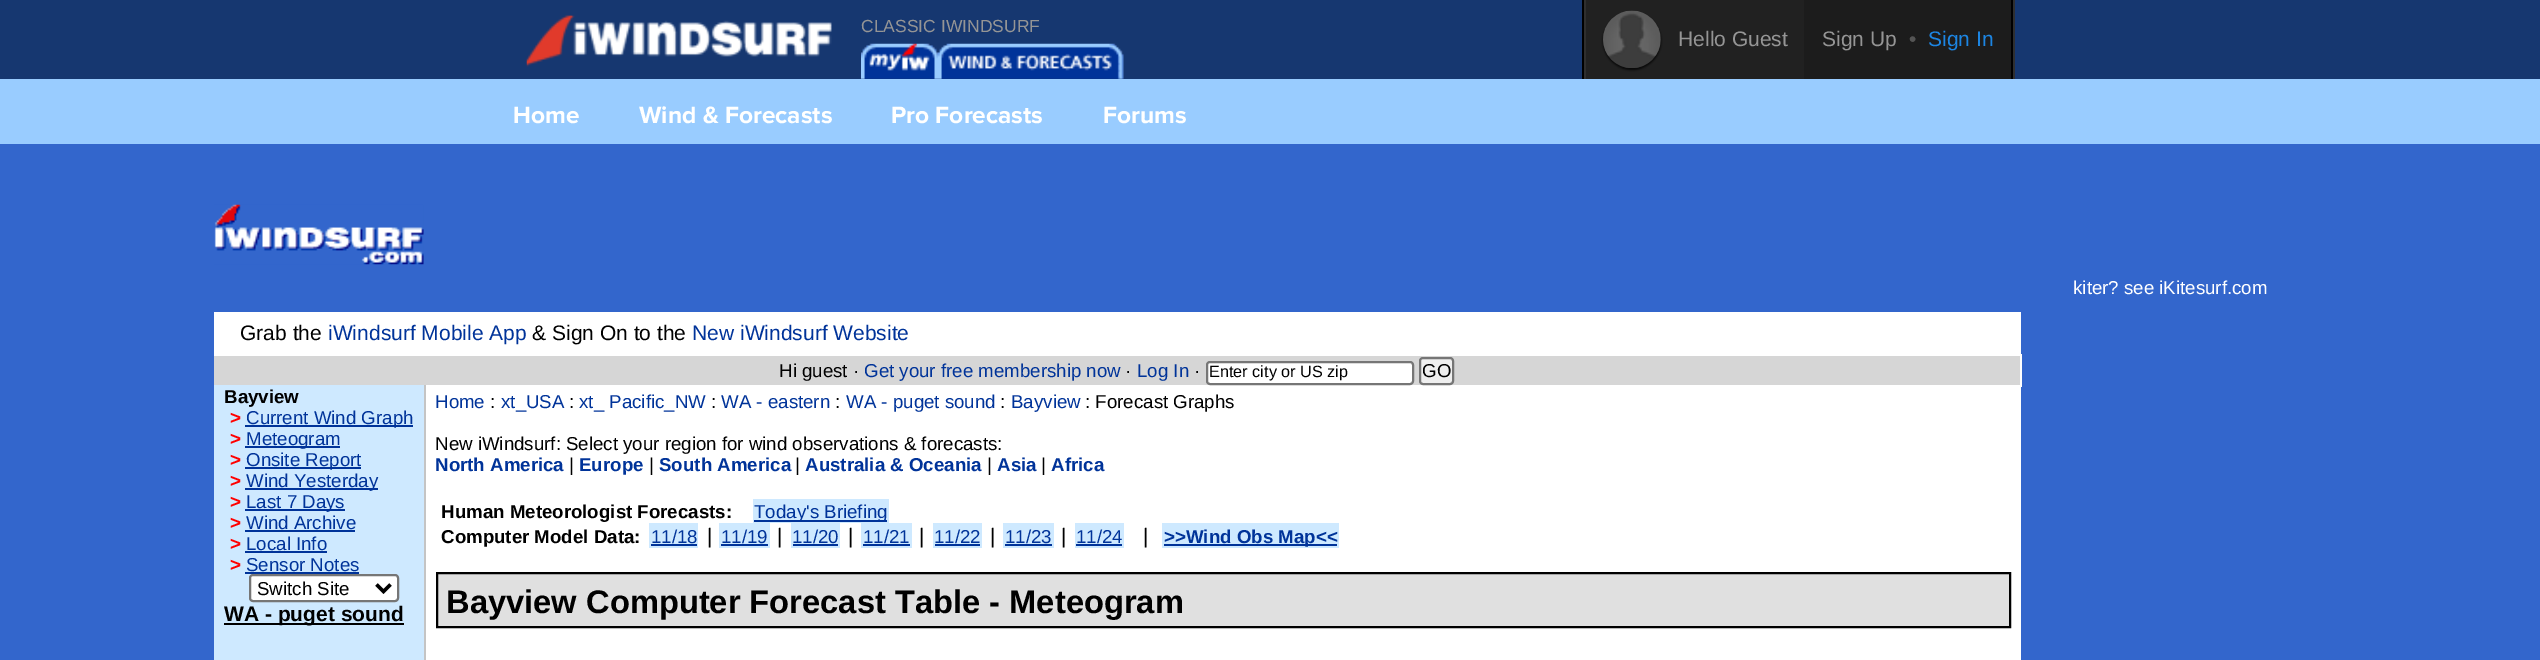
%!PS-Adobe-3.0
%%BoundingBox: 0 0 2540 660
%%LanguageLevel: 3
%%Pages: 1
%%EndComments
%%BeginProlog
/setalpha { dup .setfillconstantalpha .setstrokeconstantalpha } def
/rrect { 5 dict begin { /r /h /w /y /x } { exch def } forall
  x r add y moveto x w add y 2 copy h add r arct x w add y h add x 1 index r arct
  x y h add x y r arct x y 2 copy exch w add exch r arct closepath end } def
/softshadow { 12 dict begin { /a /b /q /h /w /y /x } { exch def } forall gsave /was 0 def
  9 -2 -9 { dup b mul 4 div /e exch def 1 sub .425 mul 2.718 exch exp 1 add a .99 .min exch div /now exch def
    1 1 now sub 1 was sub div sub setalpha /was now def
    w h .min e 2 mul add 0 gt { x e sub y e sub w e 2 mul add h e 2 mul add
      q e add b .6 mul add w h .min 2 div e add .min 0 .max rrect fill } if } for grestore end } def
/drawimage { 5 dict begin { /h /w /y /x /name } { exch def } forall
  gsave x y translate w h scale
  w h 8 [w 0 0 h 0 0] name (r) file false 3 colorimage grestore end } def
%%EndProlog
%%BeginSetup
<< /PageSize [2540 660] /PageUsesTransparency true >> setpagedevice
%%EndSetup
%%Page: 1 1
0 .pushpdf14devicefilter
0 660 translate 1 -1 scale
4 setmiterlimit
0.2 0.4 0.8 setrgbcolor
0 0 2540 660 rectfill
0.086 0.216 0.439 setrgbcolor
0 0 2540 79 rectfill
(images/1.raw) 526 15 306 52 drawimage
(images/2.raw) 861 43 77 36 drawimage
(images/3.raw) 938 43 186 36 drawimage
0.184 setgray
2013 0 2 79 rectfill
0 setgray
1582 0 2 79 rectfill
2011 0 2 79 rectfill
0.184 setgray
1584 0 2 79 rectfill
0.129 setgray
1586 0 218 79 rectfill
0 setgray
1603 12 58 58 29 1 0.75 softshadow
(images/4.raw) 1603 10 58 58 drawimage
0.11 setgray
1804 0 207 79 rectfill
0.6 0.8 1 setrgbcolor
0 79 2540 65 rectfill
(images/5.raw) 214 204 210 61 drawimage
1 setgray
214 312 1807 44 rectfill
0.839 setgray
214 356 1806 29 rectfill
1 setgray
426 385 1595 275 rectfill
2020 354 2 33 rectfill
1207 362 206 22 3 rrect gsave fill grestore
0.463 setgray
2 setlinewidth
stroke
0.937 setgray
1420 358 33 26 3 rrect gsave fill grestore
0.463 setgray
stroke
0.808 0.914 1 setrgbcolor
214 385 210 275 rectfill
0.769 setgray
424 385 2 275 rectfill
0 0.2 0.6 setrgbcolor
245 425 168 2 rectfill
245 446 95 2 rectfill
245 467 116 2 rectfill
245 488 133 2 rectfill
245 509 100 2 rectfill
245 530 110 2 rectfill
245 551 82 2 rectfill
245 572 114 2 rectfill
1 setgray
250 575 148 26 3 rrect gsave fill grestore
0.463 setgray
stroke
0 setgray
3.5 setlinewidth
newpath 376.5 584.5 moveto 383.5 591.5 lineto 390.5 584.5 lineto stroke
224 623 180 2 rectfill
0.808 0.914 1 setrgbcolor
753 499 136 24 rectfill
0 0.2 0.6 setrgbcolor
754 520 133 2 rectfill
0.808 0.914 1 setrgbcolor
649 523 49 25 rectfill
0 0.2 0.6 setrgbcolor
651 544 46 2 rectfill
0.808 0.914 1 setrgbcolor
719 523 51 25 rectfill
0 0.2 0.6 setrgbcolor
721 544 47 2 rectfill
0.808 0.914 1 setrgbcolor
791 523 49 25 rectfill
0 0.2 0.6 setrgbcolor
793 544 45 2 rectfill
0.808 0.914 1 setrgbcolor
861 523 51 25 rectfill
0 0.2 0.6 setrgbcolor
863 544 47 2 rectfill
0.808 0.914 1 setrgbcolor
933 523 49 25 rectfill
0 0.2 0.6 setrgbcolor
935 544 45 2 rectfill
0.808 0.914 1 setrgbcolor
1003 523 51 25 rectfill
0 0.2 0.6 setrgbcolor
1005 544 47 2 rectfill
0.808 0.914 1 setrgbcolor
1075 523 49 25 rectfill
0 0.2 0.6 setrgbcolor
1076 544 46 2 rectfill
0.808 0.914 1 setrgbcolor
1162 523 177 25 rectfill
0 0.2 0.6 setrgbcolor
1164 544 173 2 rectfill
0.878 setgray
newpath 437 573 moveto 2010 573 lineto 2010 627 lineto 437 627 lineto closepath gsave fill grestore
0 setgray
2 setlinewidth
stroke
/LiberationSans-Regular [17.5 0 0 -17.5 0 0] selectfont
0.584 setgray
861 32 moveto (CLASSIC IWINDSURF) show
/LiberationSans-Regular [21 0 0 -21 0 0] selectfont
1678 46 moveto (Hello Guest) show
1822 46 moveto (Sign Up) show
0.333 setgray
1909 46 moveto (•) show
0.11 0.522 0.886 setrgbcolor
1928 46 moveto (Sign In) show
/ProximaNova-Bold [24.5 0 0 -24.5 0 0] selectfont
1 setgray
513 123 moveto (Home) show
639 123 moveto (Wind & Forecasts) show
891 123 moveto (Pro Forecasts) show
1103 123 moveto (Forums) show
/LiberationSans-Regular [18.7 0 0 -18.7 0 0] selectfont
2073 294 moveto (kiter? see iKitesurf.com) show
/LiberationSans-Regular [21 0 0 -21 0 0] selectfont
0 setgray
240 340 moveto (Grab the) show
0 0.2 0.6 setrgbcolor
328 340 moveto (iWindsurf Mobile App) show
0 setgray
532 340 moveto (& Sign On to the) show
0 0.2 0.6 setrgbcolor
692 340 moveto (New iWindsurf Website) show
/LiberationSans-Regular [18.7 0 0 -18.7 0 0] selectfont
0 setgray
779 377 moveto (Hi guest ·) show
0 0.2 0.6 setrgbcolor
864 377 moveto (Get your free membership now) show
0 setgray
1125 377 moveto (·) show
0 0.2 0.6 setrgbcolor
1137 377 moveto (Log In) show
0 setgray
1194 377 moveto (·) show
/LiberationSans-Regular [16.25 0 0 -16.25 0 0] selectfont
1209 377 moveto (Enter city or US zip) show
/LiberationSans-Regular [18.7 0 0 -18.7 0 0] selectfont
1422 377 moveto (GO) show
/LiberationSans-Bold [18.7 0 0 -18.7 0 0] selectfont
224 403 moveto (Bayview) show
1 0 0 setrgbcolor
230 424 moveto (>) show
/LiberationSans-Regular [18.7 0 0 -18.7 0 0] selectfont
0 0.2 0.6 setrgbcolor
246 424 moveto (Current Wind Graph) show
/LiberationSans-Bold [18.7 0 0 -18.7 0 0] selectfont
1 0 0 setrgbcolor
230 445 moveto (>) show
/LiberationSans-Regular [18.7 0 0 -18.7 0 0] selectfont
0 0.2 0.6 setrgbcolor
246 445 moveto (Meteogram) show
/LiberationSans-Bold [18.7 0 0 -18.7 0 0] selectfont
1 0 0 setrgbcolor
230 466 moveto (>) show
/LiberationSans-Regular [18.7 0 0 -18.7 0 0] selectfont
0 0.2 0.6 setrgbcolor
246 466 moveto (Onsite Report) show
/LiberationSans-Bold [18.7 0 0 -18.7 0 0] selectfont
1 0 0 setrgbcolor
230 487 moveto (>) show
/LiberationSans-Regular [18.7 0 0 -18.7 0 0] selectfont
0 0.2 0.6 setrgbcolor
246 487 moveto (Wind Yesterday) show
/LiberationSans-Bold [18.7 0 0 -18.7 0 0] selectfont
1 0 0 setrgbcolor
230 508 moveto (>) show
/LiberationSans-Regular [18.7 0 0 -18.7 0 0] selectfont
0 0.2 0.6 setrgbcolor
246 508 moveto (Last 7 Days) show
/LiberationSans-Bold [18.7 0 0 -18.7 0 0] selectfont
1 0 0 setrgbcolor
230 529 moveto (>) show
/LiberationSans-Regular [18.7 0 0 -18.7 0 0] selectfont
0 0.2 0.6 setrgbcolor
246 529 moveto (Wind Archive) show
/LiberationSans-Bold [18.7 0 0 -18.7 0 0] selectfont
1 0 0 setrgbcolor
230 550 moveto (>) show
/LiberationSans-Regular [18.7 0 0 -18.7 0 0] selectfont
0 0.2 0.6 setrgbcolor
246 550 moveto (Local Info) show
/LiberationSans-Bold [18.7 0 0 -18.7 0 0] selectfont
1 0 0 setrgbcolor
230 571 moveto (>) show
/LiberationSans-Regular [18.7 0 0 -18.7 0 0] selectfont
0 0.2 0.6 setrgbcolor
246 571 moveto (Sensor Notes) show
0 setgray
257 595 moveto (Switch Site) show
/LiberationSans-Bold [21 0 0 -21 0 0] selectfont
224 621 moveto (WA - puget sound) show
/LiberationSans-Regular [18.7 0 0 -18.7 0 0] selectfont
0 0.2 0.6 setrgbcolor
435 408 moveto (Home) show
0 setgray
490 408 moveto (:) show
0 0.2 0.6 setrgbcolor
501 408 moveto (xt_USA) show
0 setgray
569 408 moveto (:) show
0 0.2 0.6 setrgbcolor
579 408 moveto (xt_ Pacific_NW) show
0 setgray
711 408 moveto (:) show
0 0.2 0.6 setrgbcolor
721 408 moveto (WA - eastern) show
0 setgray
835 408 moveto (:) show
0 0.2 0.6 setrgbcolor
846 408 moveto (WA - puget sound) show
0 setgray
1000 408 moveto (:) show
0 0.2 0.6 setrgbcolor
1011 408 moveto (Bayview) show
0 setgray
1085 408 moveto (: Forecast Graphs) show
435 450 moveto (New iWindsurf: Select your region for wind observations & forecasts:) show
/LiberationSans-Bold [18.7 0 0 -18.7 0 0] selectfont
0 0.2 0.6 setrgbcolor
435 471 moveto (North America) show
/LiberationSans-Regular [18.7 0 0 -18.7 0 0] selectfont
0 setgray
569 471 moveto (|) show
/LiberationSans-Bold [18.7 0 0 -18.7 0 0] selectfont
0 0.2 0.6 setrgbcolor
579 471 moveto (Europe) show
/LiberationSans-Regular [18.7 0 0 -18.7 0 0] selectfont
0 setgray
649 471 moveto (|) show
/LiberationSans-Bold [18.7 0 0 -18.7 0 0] selectfont
0 0.2 0.6 setrgbcolor
659 471 moveto (South America) show
/LiberationSans-Regular [18.7 0 0 -18.7 0 0] selectfont
0 setgray
795 471 moveto (|) show
/LiberationSans-Bold [18.7 0 0 -18.7 0 0] selectfont
0 0.2 0.6 setrgbcolor
805 471 moveto (Australia & Oceania) show
/LiberationSans-Regular [18.7 0 0 -18.7 0 0] selectfont
0 setgray
987 471 moveto (|) show
/LiberationSans-Bold [18.7 0 0 -18.7 0 0] selectfont
0 0.2 0.6 setrgbcolor
997 471 moveto (Asia) show
/LiberationSans-Regular [18.7 0 0 -18.7 0 0] selectfont
0 setgray
1041 471 moveto (|) show
/LiberationSans-Bold [18.7 0 0 -18.7 0 0] selectfont
0 0.2 0.6 setrgbcolor
1051 471 moveto (Africa) show
0 setgray
441 518 moveto (Human Meteorologist Forecasts:) show
/LiberationSans-Regular [18.7 0 0 -18.7 0 0] selectfont
0 0.2 0.6 setrgbcolor
754 518 moveto (Today's Briefing) show
/LiberationSans-Bold [18.7 0 0 -18.7 0 0] selectfont
0 setgray
441 543 moveto (Computer Model Data:) show
/LiberationSans-Regular [18.7 0 0 -18.7 0 0] selectfont
0 0.2 0.6 setrgbcolor
651 543 moveto (11/18) show
/LiberationSans-Regular [21 0 0 -21 0 0] selectfont
0 setgray
707 543 moveto (|) show
/LiberationSans-Regular [18.7 0 0 -18.7 0 0] selectfont
0 0.2 0.6 setrgbcolor
721 543 moveto (11/19) show
/LiberationSans-Regular [21 0 0 -21 0 0] selectfont
0 setgray
777 543 moveto (|) show
/LiberationSans-Regular [18.7 0 0 -18.7 0 0] selectfont
0 0.2 0.6 setrgbcolor
792 543 moveto (11/20) show
/LiberationSans-Regular [21 0 0 -21 0 0] selectfont
0 setgray
848 543 moveto (|) show
/LiberationSans-Regular [18.7 0 0 -18.7 0 0] selectfont
0 0.2 0.6 setrgbcolor
863 543 moveto (11/21) show
/LiberationSans-Regular [21 0 0 -21 0 0] selectfont
0 setgray
919 543 moveto (|) show
/LiberationSans-Regular [18.7 0 0 -18.7 0 0] selectfont
0 0.2 0.6 setrgbcolor
934 543 moveto (11/22) show
/LiberationSans-Regular [21 0 0 -21 0 0] selectfont
0 setgray
990 543 moveto (|) show
/LiberationSans-Regular [18.7 0 0 -18.7 0 0] selectfont
0 0.2 0.6 setrgbcolor
1005 543 moveto (11/23) show
/LiberationSans-Regular [21 0 0 -21 0 0] selectfont
0 setgray
1061 543 moveto (|) show
/LiberationSans-Regular [18.7 0 0 -18.7 0 0] selectfont
0 0.2 0.6 setrgbcolor
1076 543 moveto (11/24) show
/LiberationSans-Regular [21 0 0 -21 0 0] selectfont
0 setgray
1143 543 moveto (|) show
/LiberationSans-Bold [18.7 0 0 -18.7 0 0] selectfont
0 0.2 0.6 setrgbcolor
1164 543 moveto (>>Wind Obs Map<<) show
/LiberationSans-Bold [32.7 0 0 -32.7 0 0] selectfont
0 setgray
446 613 moveto (Bayview Computer Forecast Table - Meteogram) show
.poppdf14devicefilter showpage
%%EOF
